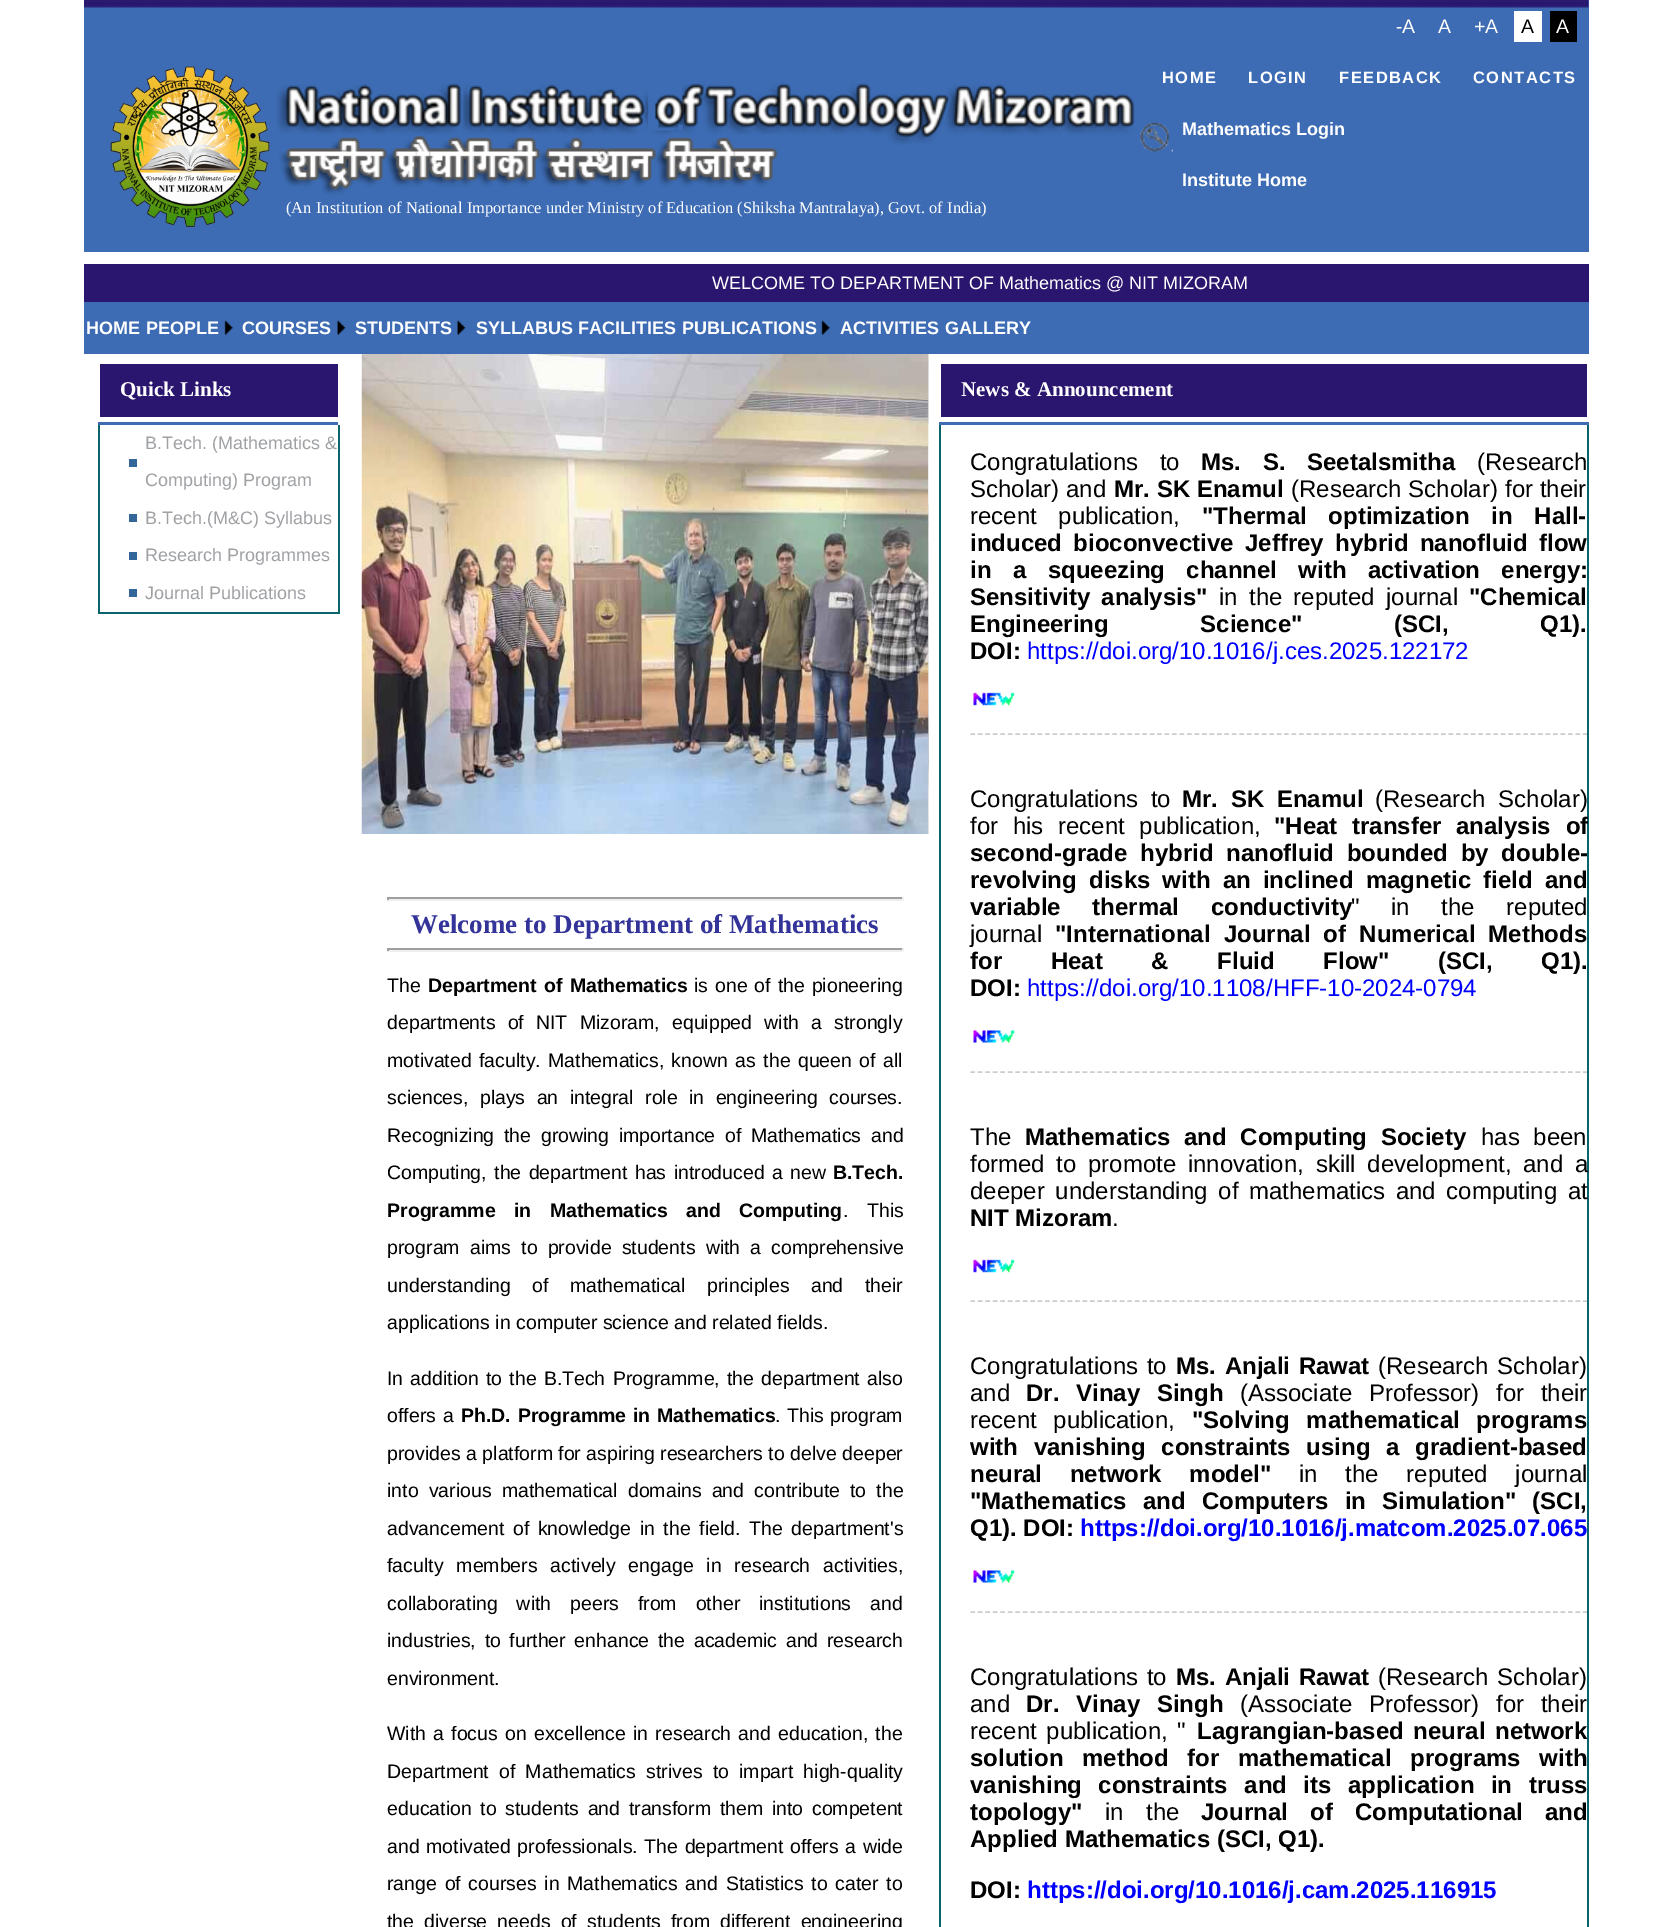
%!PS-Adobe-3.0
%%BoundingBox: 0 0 1672 1927
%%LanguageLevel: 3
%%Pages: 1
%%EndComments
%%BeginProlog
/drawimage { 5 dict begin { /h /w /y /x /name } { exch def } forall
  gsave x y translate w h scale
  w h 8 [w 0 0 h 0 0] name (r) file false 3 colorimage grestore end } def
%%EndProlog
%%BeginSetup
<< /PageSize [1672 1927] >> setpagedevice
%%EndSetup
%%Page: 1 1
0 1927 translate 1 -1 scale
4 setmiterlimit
1 setgray
0 0 1672 1927 rectfill
0.239 0.424 0.706 setrgbcolor
84 0 1505 252 rectfill
(images/1.raw) 84 0 1505 9 drawimage
1 setgray
1514 11 28 31 rectfill
0 setgray
1550 11 27 31 rectfill
(images/2.raw) 1139 122 34 30 drawimage
(images/3.raw) 110 66 160 162 drawimage
(images/4.raw) 276 83 859 112 drawimage
0.165 0.086 0.435 setrgbcolor
84 264 1505 38 rectfill
0.239 0.424 0.706 setrgbcolor
84 302 1505 52 rectfill
(images/5.raw) 224 320 9 15 drawimage
(images/6.raw) 337 320 9 15 drawimage
(images/6.raw) 457 320 9 15 drawimage
(images/5.raw) 821 320 9 15 drawimage
0.165 0.086 0.435 setrgbcolor
100 364 238 53 rectfill
0.239 0.424 0.706 setrgbcolor
98 422 240 3 rectfill
0.035 0.392 0.42 setrgbcolor
338 425 2 189 rectfill
98 612 241 2 rectfill
98 425 2 189 rectfill
0.2 0.404 0.6 setrgbcolor
129 459 8 8 rectfill
129 514 8 8 rectfill
129 552 8 8 rectfill
129 589 8 8 rectfill
(images/7.raw) 361 354 568 480 drawimage
(images/8.raw) 928 354 1 480 drawimage
0.624 setgray
387 897 516 2 rectfill
0.933 setgray
902 897 2 3 rectfill
387 899 516 2 rectfill
0.624 setgray
387 897 2 3 rectfill
387 948 516 2 rectfill
0.933 setgray
902 948 2 3 rectfill
387 950 516 2 rectfill
0.624 setgray
387 948 2 3 rectfill
0.165 0.086 0.435 setrgbcolor
941 364 646 53 rectfill
0.239 0.424 0.706 setrgbcolor
939 422 650 3 rectfill
0.035 0.392 0.42 setrgbcolor
1587 425 2 1502 rectfill
939 425 2 1502 rectfill
(images/9.raw) 973 692 42 14 drawimage
0.8 setgray
1.5 setlinewidth
[4.5 2.97] 0 setdash
newpath 970.5 734 moveto 1587 734 lineto stroke
(images/10.raw) 973 1030 42 13 drawimage
newpath 970.5 1072 moveto 1587 1072 lineto stroke
(images/9.raw) 973 1259 42 14 drawimage
newpath 970.5 1301 moveto 1587 1301 lineto stroke
(images/10.raw) 973 1570 42 13 drawimage
newpath 970.5 1612 moveto 1587 1612 lineto stroke
/LiberationSans-Regular [19.5 0 0 -19.5 0 0] selectfont
1 setgray
1396 33 moveto (-A) show
1438 33 moveto (A) show
1474 33 moveto (+A) show
0 setgray
1521 33 moveto (A) show
1 setgray
1556 33 moveto (A) show
/LiberationSans-Bold [16.5 0 0 -16.5 0 0] selectfont
1162 83 moveto 1.5 0 (HOME) ashow
1248 83 moveto 1.5 0 (LOGIN) ashow
1339 83 moveto 1.5 0 (FEEDBACK) ashow
1473 83 moveto 1.5 0 (CONTACTS) ashow
/LiberationSans-Bold [18 0 0 -18 0 0] selectfont
1182 135 moveto (Mathematics Login) show
1182 186 moveto (Institute Home) show
/LiberationSerif-Regular [16.5 0 0 -16.5 0 0] selectfont
286 213 moveto (\(An Institution of National Importance under Ministry of Education \(Shiksha Mantralaya\), Govt. of India\)) show
/LiberationSans-Regular [18 0 0 -18 0 0] selectfont
712 289 moveto (WELCOME TO DEPARTMENT OF Mathematics) show
1106 289 moveto (@ NIT MIZORAM) show
/LiberationSans-Bold [18 0 0 -18 0 0] selectfont
86 334 moveto (HOME) show
146 334 moveto (PEOPLE) show
242 334 moveto (COURSES) show
355 334 moveto (STUDENTS) show
476 334 moveto (SYLLABUS) show
578 334 moveto (FACILITIES) show
682 334 moveto (PUBLICATIONS) show
840 334 moveto (ACTIVITIES) show
945 334 moveto (GALLERY) show
/LiberationSerif-Bold [21 0 0 -21 0 0] selectfont
120 396 moveto (Quick Links) show
/LiberationSans-Regular [18 0 0 -18 0 0] selectfont
0.624 0.631 0.643 setrgbcolor
145 449 moveto (B.Tech. \(Mathematics &) show
145 486 moveto (Computing\) Program) show
145 524 moveto (B.Tech.\(M&C\) Syllabus) show
145 561 moveto (Research Programmes) show
145 599 moveto (Journal Publications) show
/LiberationSerif-Bold [27 0 0 -27 0 0] selectfont
0.2 0.2 0.6 setrgbcolor
411 933 moveto (Welcome to Department of Mathematics) show
/LiberationSans-Regular [19.5 0 0 -19.5 0 0] selectfont
0 setgray
387 992 moveto (The) show
/LiberationSans-Bold [19.5 0 0 -19.5 0 0] selectfont
428 992 moveto 2 0 32 (Department of Mathematics) widthshow
/LiberationSans-Regular [19.5 0 0 -19.5 0 0] selectfont
694 992 moveto 1.5 0 32 (is one of the pioneering) widthshow
387 1029 moveto 6.75 0 32 (departments of NIT Mizoram, equipped with a strongly) widthshow
387 1067 moveto 2 0 32 (motivated faculty. Mathematics, known as the queen of all) widthshow
387 1104 moveto 6 0 32 (sciences, plays an integral role in engineering courses.) widthshow
387 1142 moveto 4.25 0 32 (Recognizing the growing importance of Mathematics and) widthshow
387 1179 moveto 2 0 32 (Computing, the department has introduced a new) widthshow
/LiberationSans-Bold [19.5 0 0 -19.5 0 0] selectfont
833 1179 moveto (B.Tech.) show
387 1217 moveto 13 0 32 (Programme in Mathematics and Computing) widthshow
/LiberationSans-Regular [19.5 0 0 -19.5 0 0] selectfont
843 1217 moveto 13 0 32 (. This) widthshow
387 1254 moveto 4.75 0 32 (program aims to provide students with a comprehensive) widthshow
387 1292 moveto 16 0 32 (understanding of mathematical principles and their) widthshow
387 1329 moveto (applications in computer science and related fields.) show
387 1385 moveto 1.75 0 32 (In addition to the B.Tech Programme, the department also) widthshow
387 1422 moveto 1.5 0 32 (offers a) widthshow
/LiberationSans-Bold [19.5 0 0 -19.5 0 0] selectfont
461 1422 moveto 1.5 0 32 (Ph.D. Programme in Mathematics) widthshow
/LiberationSans-Regular [19.5 0 0 -19.5 0 0] selectfont
775 1422 moveto 1 0 32 (. This program) widthshow
387 1460 moveto (provides a platform for aspiring researchers to delve deeper) show
387 1497 moveto 4.75 0 32 (into various mathematical domains and contribute to the) widthshow
387 1535 moveto 3.25 0 32 (advancement of knowledge in the field. The department's) widthshow
387 1572 moveto 7.5 0 32 (faculty members actively engage in research activities,) widthshow
387 1610 moveto 13.5 0 32 (collaborating with peers from other institutions and) widthshow
387 1647 moveto 3.25 0 32 (industries, to further enhance the academic and research) widthshow
387 1685 moveto (environment.) show
387 1740 moveto 1.75 0 32 (With a focus on excellence in research and education, the) widthshow
387 1778 moveto 4.75 0 32 (Department of Mathematics strives to impart high-quality) widthshow
387 1815 moveto 3.25 0 32 (education to students and transform them into competent) widthshow
387 1853 moveto 1.25 0 32 (and motivated professionals. The department offers a wide) widthshow
387 1890 moveto 2.25 0 32 (range of courses in Mathematics and Statistics to cater to) widthshow
387 1928 moveto 4.75 0 32 (the diverse needs of students from different engineering) widthshow
/LiberationSerif-Bold [21 0 0 -21 0 0] selectfont
1 setgray
961 396 moveto (News & Announcement) show
/LiberationSans-Regular [24 0 0 -24 0 0] selectfont
0 setgray
970 470 moveto 15 0 32 (Congratulations to) widthshow
/LiberationSans-Bold [24 0 0 -24 0 0] selectfont
1201 470 moveto 15 0 32 (Ms. S. Seetalsmitha) widthshow
/LiberationSans-Regular [24 0 0 -24 0 0] selectfont
1477 470 moveto (\(Research) show
970 497 moveto (Scholar\) and) show
/LiberationSans-Bold [24 0 0 -24 0 0] selectfont
1114 497 moveto (Mr. SK Enamul) show
/LiberationSans-Regular [24 0 0 -24 0 0] selectfont
1291 497 moveto (\(Research Scholar\)) show
1505 497 moveto (for their) show
970 524 moveto 15 0 32 (recent publication,) widthshow
/LiberationSans-Bold [24 0 0 -24 0 0] selectfont
1202 524 moveto 15 0 32 ("Thermal optimization in Hall-) widthshow
970 551 moveto 4.75 0 32 (induced bioconvective Jeffrey hybrid nanofluid flow) widthshow
970 578 moveto 14.75 0 32 (in a squeezing channel with activation energy:) widthshow
970 605 moveto 4.5 0 32 (Sensitivity analysis) widthshow
1196 605 moveto (") show
/LiberationSans-Regular [24 0 0 -24 0 0] selectfont
1219 605 moveto 4.5 0 32 (in the reputed journal) widthshow
/LiberationSans-Bold [24 0 0 -24 0 0] selectfont
1469 605 moveto ("Chemical) show
970 632 moveto 85 0 32 (Engineering Science" \(SCI, Q1\).) widthshow
970 659 moveto (DOI:) show
/LiberationSans-Regular [24 0 0 -24 0 0] selectfont
0 0 1 setrgbcolor
1027 659 moveto (https://doi.org/10.1016/j.ces.2025.122172) show
0 setgray
970 807 moveto 6 0 32 (Congratulations to) widthshow
/LiberationSans-Bold [24 0 0 -24 0 0] selectfont
1182 807 moveto 6 0 32 (Mr. SK Enamul) widthshow
/LiberationSans-Regular [24 0 0 -24 0 0] selectfont
1375 807 moveto 6 0 32 (\(Research Scholar\)) widthshow
970 834 moveto 8 0 32 (for his recent publication,) widthshow
/LiberationSans-Bold [24 0 0 -24 0 0] selectfont
1274 834 moveto 8 0 32 ("Heat transfer analysis of) widthshow
970 861 moveto 6 0 32 (second-grade hybrid nanofluid bounded by double-) widthshow
970 888 moveto 5.5 0 32 (revolving disks with an inclined magnetic field and) widthshow
970 915 moveto 25 0 32 (variable thermal conductivity) widthshow
/LiberationSans-Regular [24 0 0 -24 0 0] selectfont
1351 915 moveto (") show
1391 915 moveto 25 0 32 (in the reputed) widthshow
970 942 moveto (journal) show
/LiberationSans-Bold [24 0 0 -24 0 0] selectfont
1055 942 moveto 6.5 0 32 ("International Journal of Numerical Methods) widthshow
970 969 moveto 42 0 32 (for Heat & Fluid Flow" \(SCI, Q1\).) widthshow
970 996 moveto (DOI:) show
/LiberationSans-Regular [24 0 0 -24 0 0] selectfont
0 0 1 setrgbcolor
1027 996 moveto (https://doi.org/10.1108/HFF-10-2024-0794) show
0 setgray
970 1145 moveto (The) show
/LiberationSans-Bold [24 0 0 -24 0 0] selectfont
1025 1145 moveto 7 0 32 (Mathematics and Computing Society) widthshow
/LiberationSans-Regular [24 0 0 -24 0 0] selectfont
1481 1145 moveto 7 0 32 (has been) widthshow
970 1172 moveto 5 0 32 (formed to promote innovation, skill development, and a) widthshow
970 1199 moveto 4 0 32 (deeper understanding of mathematics and computing at) widthshow
/LiberationSans-Bold [24 0 0 -24 0 0] selectfont
970 1226 moveto (NIT Mizoram) show
/LiberationSans-Regular [24 0 0 -24 0 0] selectfont
1112 1226 moveto (.) show
970 1374 moveto 2 0 32 (Congratulations to) widthshow
/LiberationSans-Bold [24 0 0 -24 0 0] selectfont
1176 1374 moveto 2 0 32 (Ms. Anjali Rawat) widthshow
/LiberationSans-Regular [24 0 0 -24 0 0] selectfont
1378 1374 moveto 2 0 32 (\(Research Scholar\)) widthshow
970 1401 moveto (and) show
/LiberationSans-Bold [24 0 0 -24 0 0] selectfont
1026 1401 moveto 10 0 32 (Dr. Vinay Singh) widthshow
/LiberationSans-Regular [24 0 0 -24 0 0] selectfont
1240 1401 moveto 10 0 32 (\(Associate Professor\) for their) widthshow
970 1428 moveto 10 0 32 (recent publication,) widthshow
/LiberationSans-Bold [24 0 0 -24 0 0] selectfont
1192 1428 moveto (") show
1203 1428 moveto 10 0 32 (Solving mathematical programs) widthshow
970 1455 moveto 9 0 32 (with vanishing constraints using a gradient-based) widthshow
970 1482 moveto 21 0 32 (neural network model) widthshow
1260 1482 moveto (") show
/LiberationSans-Regular [24 0 0 -24 0 0] selectfont
1299 1482 moveto 21 0 32 (in the reputed journal) widthshow
/LiberationSans-Bold [24 0 0 -24 0 0] selectfont
970 1509 moveto 9.5 0 32 ("Mathematics and Computers in Simulation" \(SCI,) widthshow
970 1536 moveto (Q1\). DOI:) show
0 0 1 setrgbcolor
1080 1536 moveto (https://doi.org/10.1016/j.matcom.2025.07.065) show
/LiberationSans-Regular [24 0 0 -24 0 0] selectfont
0 setgray
970 1685 moveto 2 0 32 (Congratulations to) widthshow
/LiberationSans-Bold [24 0 0 -24 0 0] selectfont
1176 1685 moveto 2 0 32 (Ms. Anjali Rawat) widthshow
/LiberationSans-Regular [24 0 0 -24 0 0] selectfont
1378 1685 moveto 2 0 32 (\(Research Scholar\)) widthshow
970 1712 moveto (and) show
/LiberationSans-Bold [24 0 0 -24 0 0] selectfont
1026 1712 moveto 10 0 32 (Dr. Vinay Singh) widthshow
/LiberationSans-Regular [24 0 0 -24 0 0] selectfont
1240 1712 moveto 10 0 32 (\(Associate Professor\) for their) widthshow
970 1739 moveto 3 0 32 (recent publication, ") widthshow
/LiberationSans-Bold [24 0 0 -24 0 0] selectfont
1197 1739 moveto 3 0 32 (Lagrangian-based neural network) widthshow
970 1766 moveto 12 0 32 (solution method for mathematical programs with) widthshow
970 1793 moveto 9.75 0 32 (vanishing constraints and its application in truss) widthshow
970 1820 moveto (topology") show
/LiberationSans-Regular [24 0 0 -24 0 0] selectfont
1105 1820 moveto 15.5 0 32 (in the) widthshow
/LiberationSans-Bold [24 0 0 -24 0 0] selectfont
1201 1820 moveto 15.5 0 32 (Journal of Computational and) widthshow
970 1847 moveto (Applied Mathematics \(SCI, Q1\).) show
970 1898 moveto (DOI:) show
0 0 1 setrgbcolor
1027 1898 moveto (https://doi.org/10.1016/j.cam.2025.116915) show
showpage
%%EOF
